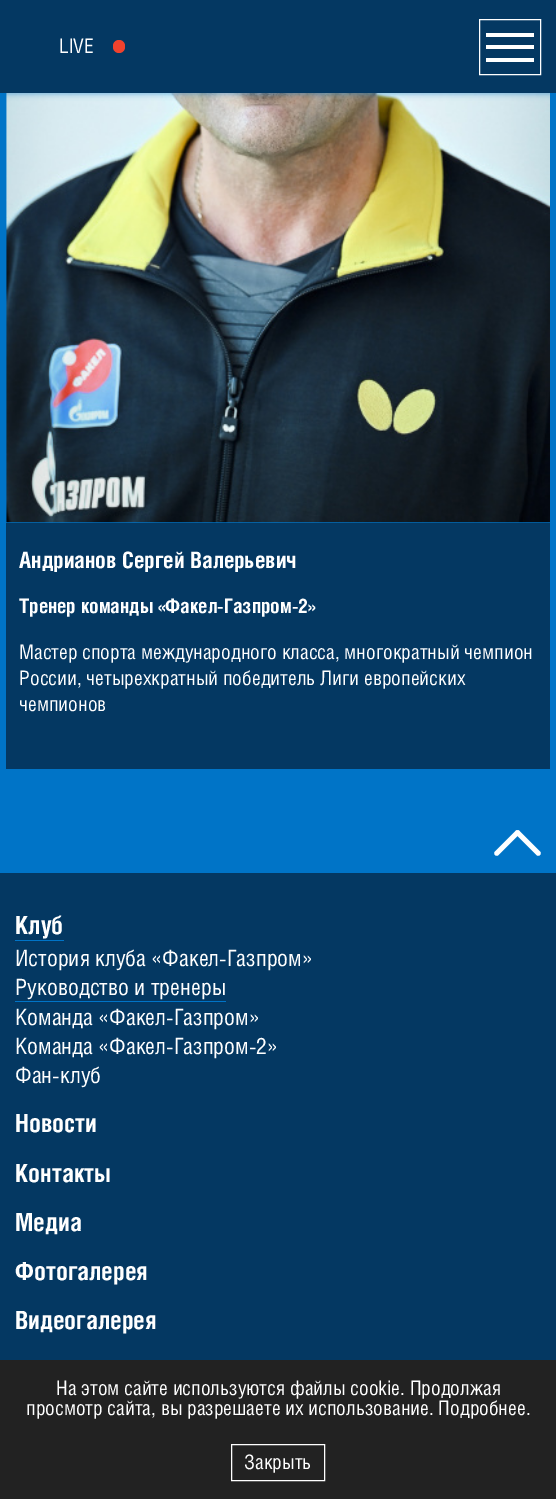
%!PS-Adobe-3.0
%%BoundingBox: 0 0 556 1499
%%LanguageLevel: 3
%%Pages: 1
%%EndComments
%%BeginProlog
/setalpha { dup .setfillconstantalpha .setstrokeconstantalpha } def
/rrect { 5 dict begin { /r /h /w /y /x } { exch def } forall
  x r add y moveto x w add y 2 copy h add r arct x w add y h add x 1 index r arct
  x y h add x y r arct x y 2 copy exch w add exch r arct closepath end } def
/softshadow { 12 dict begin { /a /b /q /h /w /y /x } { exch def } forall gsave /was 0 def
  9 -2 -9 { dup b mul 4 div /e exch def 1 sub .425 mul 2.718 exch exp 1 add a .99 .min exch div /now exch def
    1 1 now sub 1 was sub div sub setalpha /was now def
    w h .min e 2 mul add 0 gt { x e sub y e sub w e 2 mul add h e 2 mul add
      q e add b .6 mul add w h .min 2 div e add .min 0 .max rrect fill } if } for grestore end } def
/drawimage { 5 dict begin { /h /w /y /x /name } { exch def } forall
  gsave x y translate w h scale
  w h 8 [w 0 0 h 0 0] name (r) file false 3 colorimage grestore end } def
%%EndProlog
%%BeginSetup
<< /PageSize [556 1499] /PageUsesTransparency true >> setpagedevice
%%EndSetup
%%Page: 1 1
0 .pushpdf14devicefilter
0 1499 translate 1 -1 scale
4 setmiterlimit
0 0.455 0.78 setrgbcolor
0 0 556 1499 rectfill
(images/1.raw) 6 93 544 430 drawimage
0 1 556 93 0 3 0.5 softshadow
0.016 0.22 0.384 setrgbcolor
0 0 556 93 rectfill
0.945 0.259 0.176 setrgbcolor
113 40 12 13 6 rrect fill
1 setgray
479.5 19.5 61 55 rectstroke
486 33 48 4 rectfill
486 45 48 4 rectfill
486 58 48 4 rectfill
0.016 0.22 0.384 setrgbcolor
6 523 544 246 rectfill
1 setgray
newpath 495 851.5 moveto 515.5 831 lineto 516 830 518 830 519 831 curveto 520 832 520 833.5 519 834.5 curveto 498.5 855 lineto 497.5 856 496 856 495 855 curveto 494 854 494 852.5 495 851.5 curveto closepath fill
newpath 519.5 831 moveto 540 851.5 lineto 541 852.5 541 854 540 855 curveto 539 856 537.5 856 536.5 855 curveto 516 834.5 lineto 515 833.5 515 832 516 831 curveto 517 830 519 830 519.5 831 curveto closepath fill
0.016 0.22 0.384 setrgbcolor
0 873 556 487 rectfill
0 0.455 0.78 setrgbcolor
15 940 49 1 rectfill
15 1001 211 1 rectfill
0.133 setgray
0 1360 556 139 rectfill
1 setgray
231.5 1444.5 93 36 rectstroke
/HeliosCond-Regular [20 0 0 -20 0 0] selectfont
59 53 moveto (LIVE) show
/HeliosCond-Bold [22.5 0 0 -22.5 0 0] selectfont
19 568 moveto (Андрианов Сергей Валерьевич) show
/HeliosCond-Bold [20 0 0 -20 0 0] selectfont
19 613 moveto (Тренер команды «Факел-Газпром-2») show
/HeliosCond-Regular [20 0 0 -20 0 0] selectfont
19 659 moveto (Мастер спорта международного класса, многократный чемпион) show
19 685 moveto (России, четырехкратный победитель Лиги европейских) show
19 711 moveto (чемпионов) show
/HeliosCond-Bold [25 0 0 -25 0 0] selectfont
15 934 moveto (Клуб) show
/HeliosCond-Regular [22.5 0 0 -22.5 0 0] selectfont
15 966 moveto (История клуба «Факел-Газпром») show
15 995 moveto (Руководство и тренеры) show
15 1025 moveto (Команда «Факел-Газпром») show
15 1054 moveto (Команда «Факел-Газпром-2») show
15 1083 moveto (Фан-клуб) show
/HeliosCond-Bold [25 0 0 -25 0 0] selectfont
15 1132 moveto (Новости) show
15 1182 moveto (Контакты) show
15 1231 moveto (Медиа) show
15 1280 moveto (Фотогалерея) show
15 1329 moveto (Видеогалерея) show
/HeliosCond-Regular [20 0 0 -20 0 0] selectfont
56 1395 moveto (На этом сайте используются файлы cookie. Продолжая) show
26 1415 moveto (просмотр сайта, вы разрешаете их использование. Подробнее.) show
244 1469 moveto (Закрыть) show
.poppdf14devicefilter showpage
%%EOF
